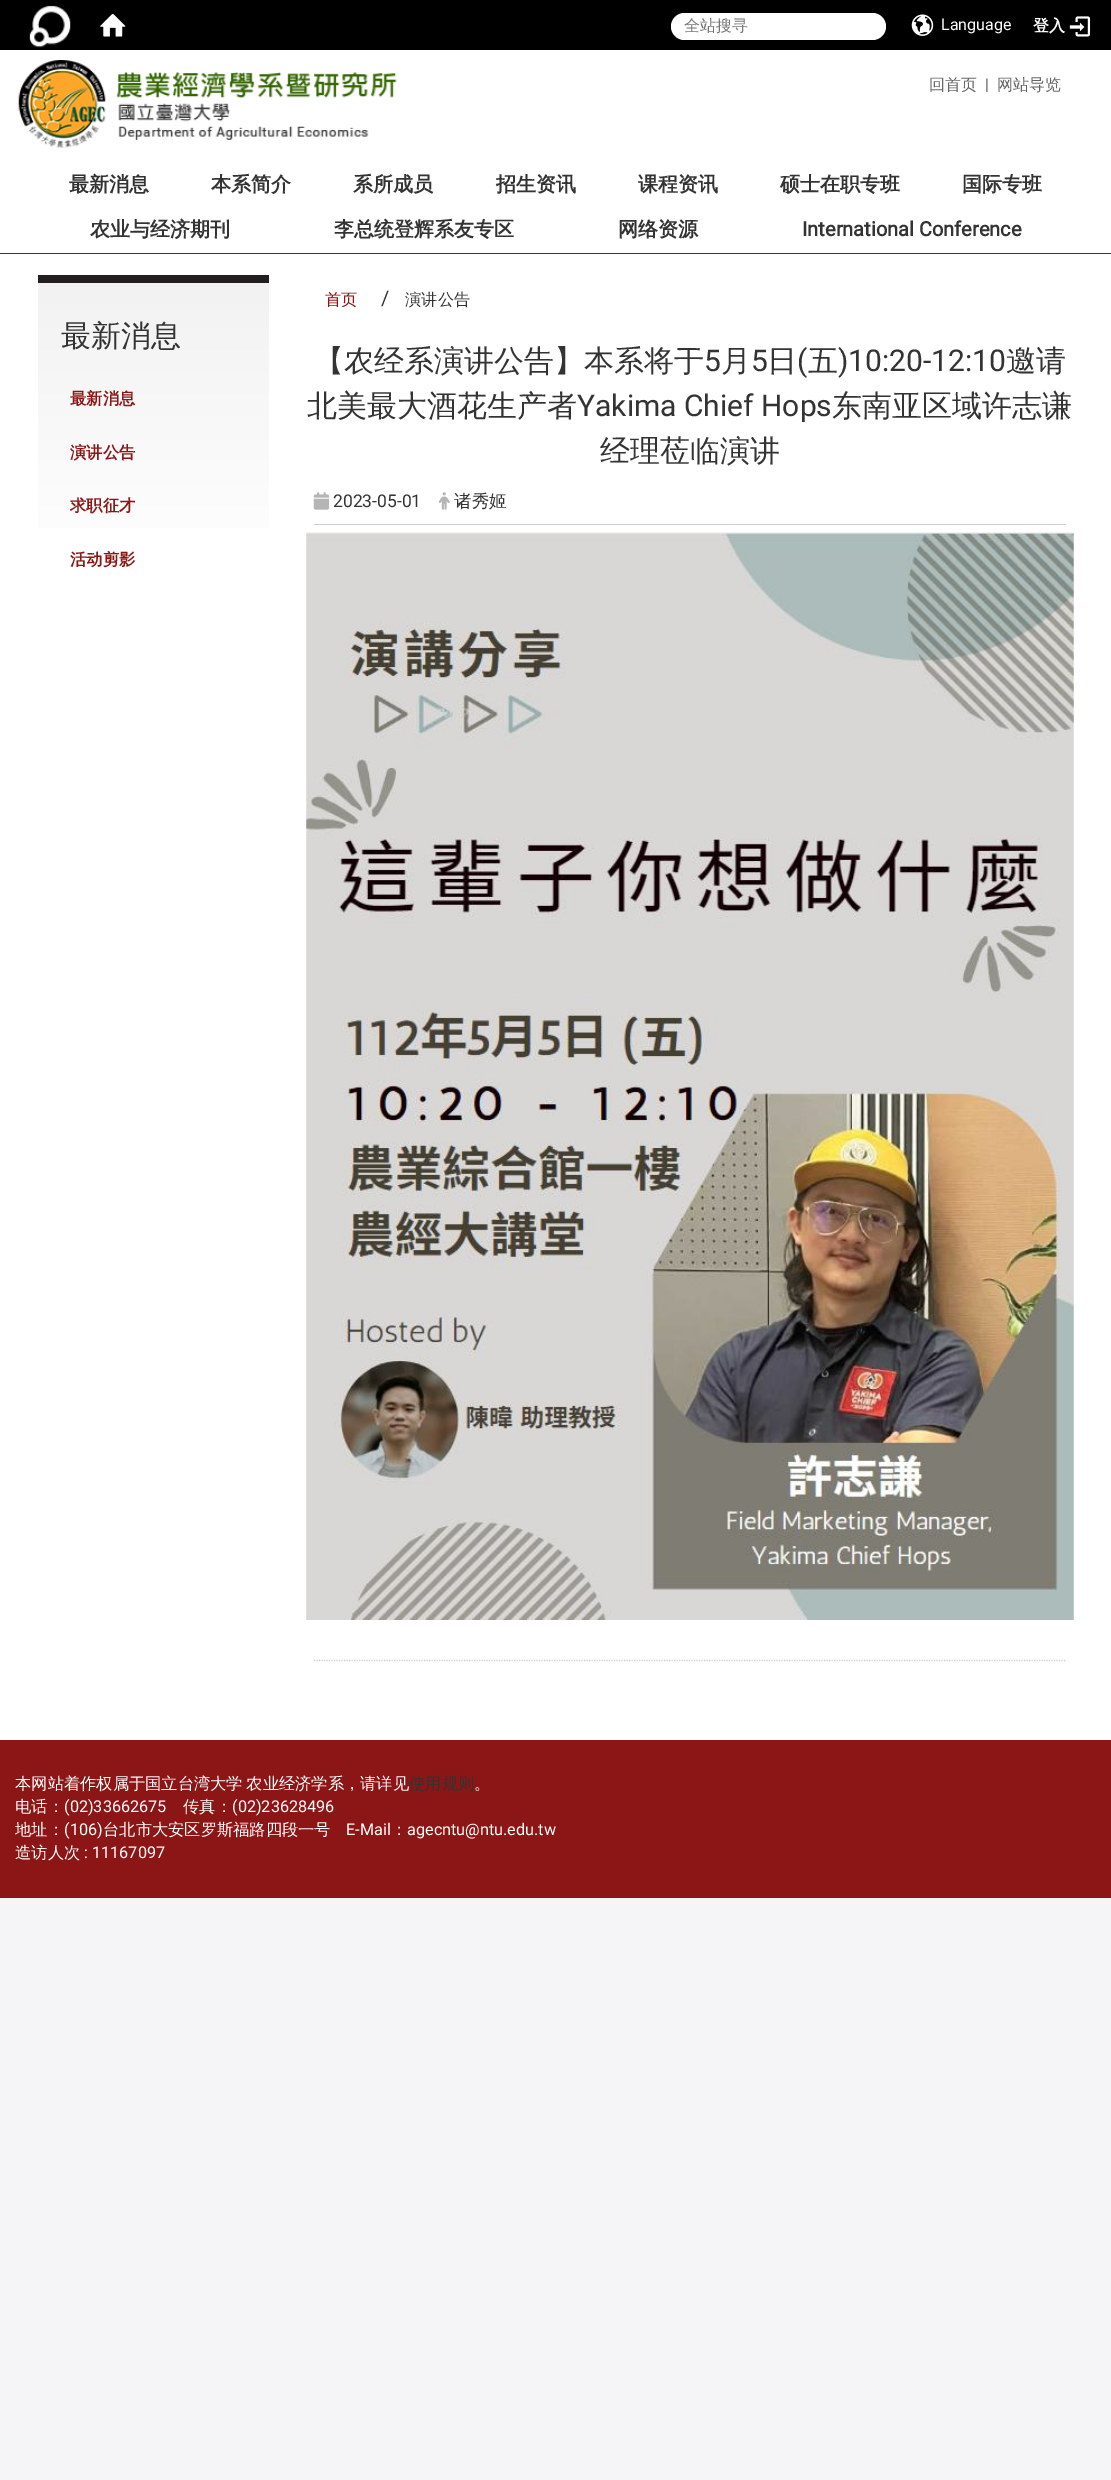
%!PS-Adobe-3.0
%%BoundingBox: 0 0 1111 2480
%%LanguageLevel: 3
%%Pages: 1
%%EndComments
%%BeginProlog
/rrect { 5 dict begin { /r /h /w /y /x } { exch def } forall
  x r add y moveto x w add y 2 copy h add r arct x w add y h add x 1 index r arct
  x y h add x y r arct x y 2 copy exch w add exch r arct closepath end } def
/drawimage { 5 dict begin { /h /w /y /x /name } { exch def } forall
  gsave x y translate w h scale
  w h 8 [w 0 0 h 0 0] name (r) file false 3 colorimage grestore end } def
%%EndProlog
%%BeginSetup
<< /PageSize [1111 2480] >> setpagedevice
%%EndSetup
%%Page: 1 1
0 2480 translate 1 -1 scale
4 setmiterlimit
0.961 0.961 0.969 setrgbcolor
0 0 1111 2480 rectfill
0 setgray
0 0 1111 50 rectfill
(images/1.raw) 29 5 42 43 drawimage
(images/2.raw) 100 14 26 23 drawimage
1 setgray
671 13 215 27 13.5 rrect fill
(images/3.raw) 911 14 23 22 drawimage
(images/4.raw) 1069 16 22 21 drawimage
0 50 1111 203 rectfill
0.549 0.082 0.082 setrgbcolor
0 253 1111 1 rectfill
(images/5.raw) 18 60 379 88 drawimage
1 setgray
0 254 1111 1486 rectfill
gsave newpath 38 283 moveto 269 283 lineto 269 528 lineto 38 528 lineto closepath clip newpath
<< /ShadingType 2 /ColorSpace /DeviceRGB /Coords [153 283 153 586] /Extend [true true] /Function << /FunctionType 2 /Domain [0 1] /C0 [0.949 0.949 0.949] /C1 [1 1 1] /N 1 >> >> shfill grestore
0.137 0.122 0.125 setrgbcolor
38 275 231 8 rectfill
0.808 setgray
314 524 752 1 rectfill
(images/6.raw) 313 492 17 18 drawimage
(images/7.raw) 438 492 12 18 drawimage
(images/8.raw) 306 532 768 1088 drawimage
1.2 setlinewidth
[1.25 1.25] 0 setdash
newpath 314 1660.5 moveto 1066 1660.5 lineto stroke
0.549 0.082 0.082 setrgbcolor
0 1740 1111 158 rectfill
/WenQuanYiZenHei-Medium [16 0 0 -16 0 0] selectfont
0.459 setgray
684 31 moveto (全站搜寻) show
/Roboto-Regular [16 0 0 -16 0 0] selectfont
1 setgray
941 30 moveto (Language) show
/WenQuanYiZenHei-Bold [16 0 0 -16 0 0] selectfont
1033 31 moveto (登入) show
/WenQuanYiZenHei-Medium [16 0 0 -16 0 0] selectfont
0.4 setgray
929 90 moveto (回首页) show
/Roboto-Regular [16 0 0 -16 0 0] selectfont
985 90 moveto (|) show
/WenQuanYiZenHei-Medium [16 0 0 -16 0 0] selectfont
997 90 moveto (网站导览) show
/WenQuanYiZenHei-Bold [20 0 0 -20 0 0] selectfont
0.2 setgray
69 191 moveto (最新消息) show
211 191 moveto (本系简介) show
353 191 moveto (系所成员) show
496 191 moveto (招生资讯) show
638 191 moveto (课程资讯) show
780 191 moveto (硕士在职专班) show
962 191 moveto (国际专班) show
90 236 moveto (农业与经济期刊) show
334 236 moveto (李总统登辉系友专区) show
618 236 moveto (网络资源) show
/Roboto-Bold [20 0 0 -20 0 0] selectfont
802 236 moveto (International Conference) show
/WenQuanYiZenHei-Medium [30 0 0 -30 0 0] selectfont
61 346 moveto (最新消息) show
/WenQuanYiZenHei-Bold [16.25 0 0 -16.25 0 0] selectfont
0.549 0.082 0.082 setrgbcolor
70 404 moveto (最新消息) show
70 458 moveto (演讲公告) show
70 511 moveto (求职征才) show
70 565 moveto (活动剪影) show
/WenQuanYiZenHei-Medium [16.25 0 0 -16.25 0 0] selectfont
325 305 moveto (首页) show
/Roboto-Regular [20 0 0 -20 0 0] selectfont
0.2 setgray
381 305 moveto (/) show
/WenQuanYiZenHei-Medium [16.25 0 0 -16.25 0 0] selectfont
405 305 moveto (演讲公告) show
/WenQuanYiZenHei-Medium [30 0 0 -30 0 0] selectfont
314 371 moveto (【农经系演讲公告】本系将于) show
/Roboto-Regular [30 0 0 -30 0 0] selectfont
704 371 moveto (5) show
/WenQuanYiZenHei-Medium [30 0 0 -30 0 0] selectfont
721 371 moveto (月) show
/Roboto-Regular [30 0 0 -30 0 0] selectfont
751 371 moveto (5) show
/WenQuanYiZenHei-Medium [30 0 0 -30 0 0] selectfont
767 371 moveto (日) show
/Roboto-Regular [30 0 0 -30 0 0] selectfont
797 371 moveto (\() show
/WenQuanYiZenHei-Medium [30 0 0 -30 0 0] selectfont
808 371 moveto (五) show
/Roboto-Regular [30 0 0 -30 0 0] selectfont
838 371 moveto (\)10:20-12:10) show
/WenQuanYiZenHei-Medium [30 0 0 -30 0 0] selectfont
1006 371 moveto (邀请) show
307 416 moveto (北美最大酒花生产者) show
/Roboto-Regular [30 0 0 -30 0 0] selectfont
577 416 moveto (Yakima Chief Hops) show
/WenQuanYiZenHei-Medium [30 0 0 -30 0 0] selectfont
832 416 moveto (东南亚区域许志谦) show
600 461 moveto (经理莅临演讲) show
/Roboto-Regular [17.5 0 0 -17.5 0 0] selectfont
333 507 moveto (2023-05-01) show
/WenQuanYiZenHei-Medium [17.5 0 0 -17.5 0 0] selectfont
454 507 moveto (诸秀姬) show
/WenQuanYiZenHei-Medium [16.25 0 0 -16.25 0 0] selectfont
1 setgray
15 1789 moveto -1 0 32 (本网站着作权属于国立台湾大学 农业经济学系，请详见) widthshow
0.2 setgray
409 1789 moveto (使用规则) show
1 setgray
474 1789 moveto (。) show
15 1812 moveto (电话：) show
/Roboto-Regular [16.25 0 0 -16.25 0 0] selectfont
64 1812 moveto (\(02\)33662675) show
/WenQuanYiZenHei-Medium [16.25 0 0 -16.25 0 0] selectfont
183 1812 moveto (传真：) show
/Roboto-Regular [16.25 0 0 -16.25 0 0] selectfont
232 1812 moveto (\(02\)23628496) show
/WenQuanYiZenHei-Medium [16.25 0 0 -16.25 0 0] selectfont
15 1835 moveto (地址：) show
/Roboto-Regular [16.25 0 0 -16.25 0 0] selectfont
64 1835 moveto (\(106\)) show
/WenQuanYiZenHei-Medium [16.25 0 0 -16.25 0 0] selectfont
103 1835 moveto (台北市大安区罗斯福路四段一号) show
/Roboto-Regular [16.25 0 0 -16.25 0 0] selectfont
346 1835 moveto (E-Mail) show
/WenQuanYiZenHei-Medium [16.25 0 0 -16.25 0 0] selectfont
391 1835 moveto (：) show
/Roboto-Regular [16.25 0 0 -16.25 0 0] selectfont
407 1835 moveto (agecntu@ntu.edu.tw) show
/WenQuanYiZenHei-Medium [16.25 0 0 -16.25 0 0] selectfont
15 1858 moveto (造访人次) show
/Roboto-Regular [16.25 0 0 -16.25 0 0] selectfont
84 1858 moveto (: 11167097) show
showpage
%%EOF
